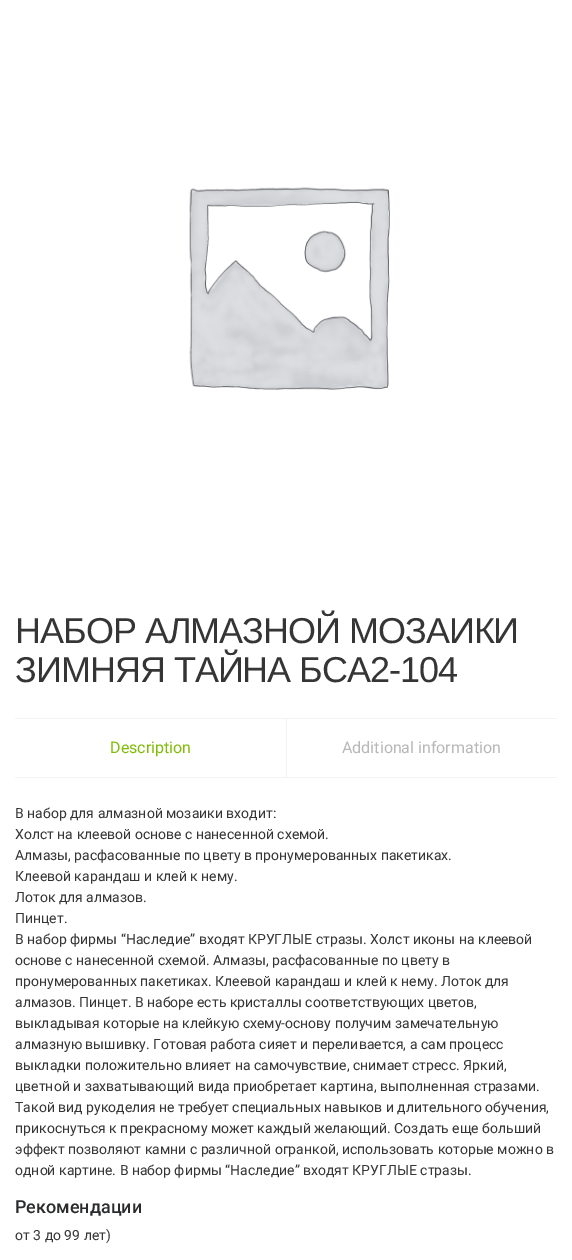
%!PS-Adobe-3.0
%%BoundingBox: 0 0 572 1260
%%LanguageLevel: 3
%%Pages: 1
%%EndComments
%%BeginProlog
/drawimage { 5 dict begin { /h /w /y /x /name } { exch def } forall
  gsave x y translate w h scale
  w h 8 [w 0 0 h 0 0] name (r) file false 3 colorimage grestore end } def
%%EndProlog
%%BeginSetup
<< /PageSize [572 1260] >> setpagedevice
%%EndSetup
%%Page: 1 1
0 1260 translate 1 -1 scale
4 setmiterlimit
1 setgray
0 0 572 1260 rectfill
(images/1.raw) 189 187 201 203 drawimage
0.953 setgray
15 718 542 1 rectfill
15 777 542 1 rectfill
286 719 1 58 rectfill
/LiberationSans-Regular [36 0 0 -36 0 0] selectfont
0.208 setgray
15 643 moveto -1 0 (НАБОР АЛМАЗНОЙ МОЗАИКИ) ashow
15 682 moveto -1 0 (ЗИМНЯЯ ТАЙНА БСА2-104) ashow
/Roboto-Regular [16 0 0 -16 0 0] selectfont
0.506 0.737 0.031 setrgbcolor
110 753 moveto (Description) show
0.722 setgray
342 753 moveto (Additional information) show
/Roboto-Regular [14 0 0 -14 0 0] selectfont
0.208 setgray
15 818 moveto (В набор для алмазной мозаики входит:) show
15 839 moveto (Холст на клеевой основе с нанесенной схемой.) show
15 860 moveto (Алмазы, расфасованные по цвету в пронумерованных пакетиках.) show
15 881 moveto (Клеевой карандаш и клей к нему.) show
15 902 moveto (Лоток для алмазов.) show
15 923 moveto (Пинцет.) show
15 944 moveto (В набор фирмы “Наследие” входят КРУГЛЫЕ стразы. Холст иконы на клеевой) show
15 965 moveto (основе с нанесенной схемой. Алмазы, расфасованные по цвету в) show
15 986 moveto (пронумерованных пакетиках. Клеевой карандаш и клей к нему. Лоток для) show
15 1007 moveto (алмазов. Пинцет. В наборе есть кристаллы соответствующих цветов,) show
15 1028 moveto (выкладывая которые на клейкую схему-основу получим замечательную) show
15 1049 moveto (алмазную вышивку. Готовая работа сияет и переливается, а сам процесс) show
15 1070 moveto (выкладки положительно влияет на самочувствие, снимает стресс. Яркий,) show
15 1091 moveto (цветной и захватывающий вида приобретает картина, выполненная стразами.) show
15 1112 moveto (Такой вид рукоделия не требует специальных навыков и длительного обучения,) show
15 1133 moveto (прикоснуться к прекрасному может каждый желающий. Создать еще больший) show
15 1154 moveto (эффект позволяют камни с различной огранкой, использовать которые можно в) show
15 1175 moveto (одной картине. В набор фирмы “Наследие” входят КРУГЛЫЕ стразы.) show
/Roboto-Medium [18 0 0 -18 0 0] selectfont
0.161 0.169 0.173 setrgbcolor
15 1213 moveto (Рекомендации) show
/Roboto-Regular [14 0 0 -14 0 0] selectfont
0.208 setgray
15 1240 moveto (от 3 до 99 лет\)) show
showpage
%%EOF
